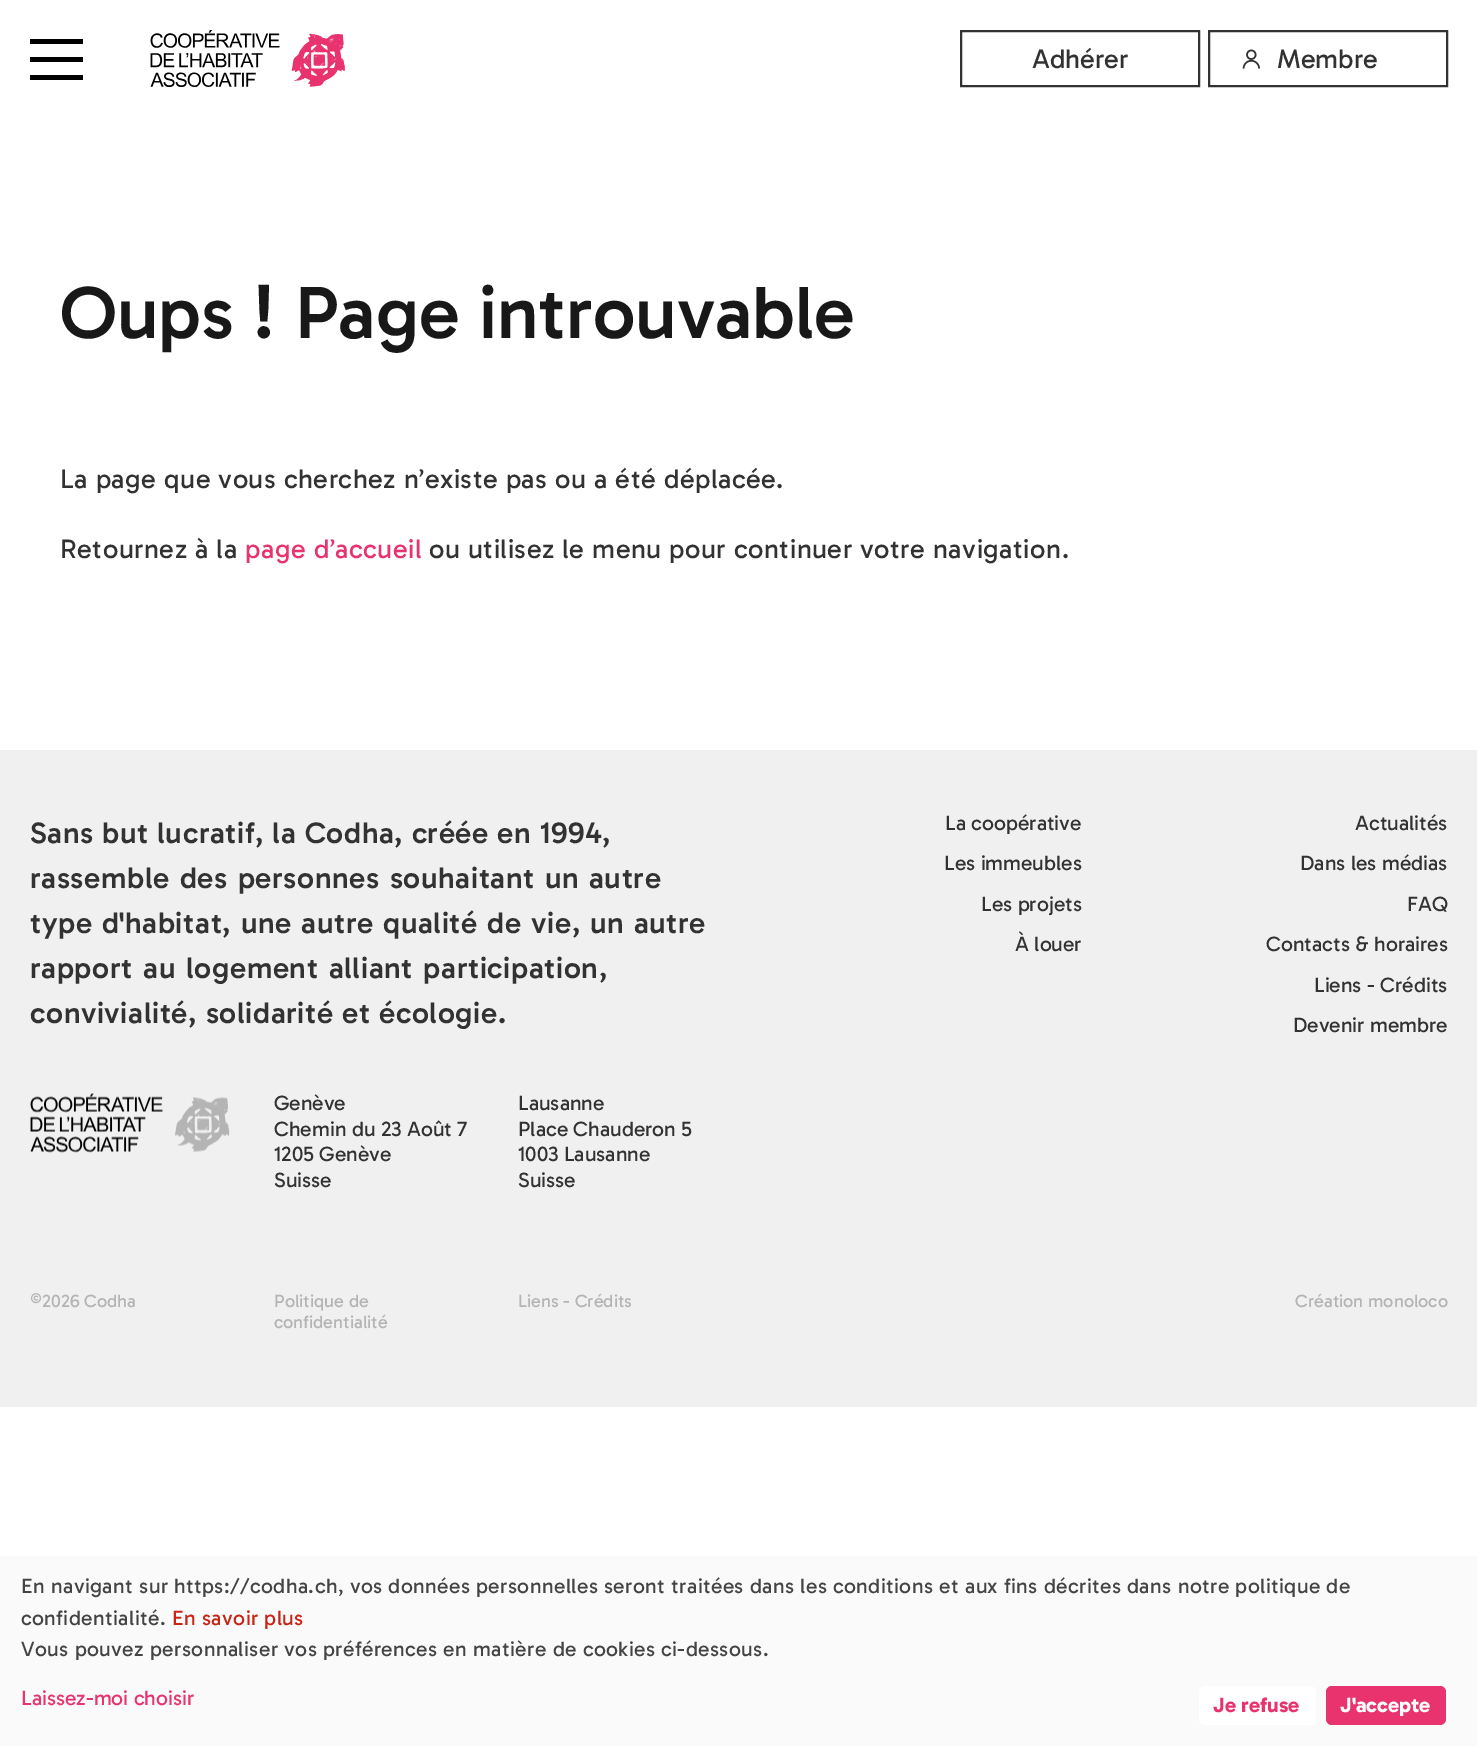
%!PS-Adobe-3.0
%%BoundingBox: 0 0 1477 1746
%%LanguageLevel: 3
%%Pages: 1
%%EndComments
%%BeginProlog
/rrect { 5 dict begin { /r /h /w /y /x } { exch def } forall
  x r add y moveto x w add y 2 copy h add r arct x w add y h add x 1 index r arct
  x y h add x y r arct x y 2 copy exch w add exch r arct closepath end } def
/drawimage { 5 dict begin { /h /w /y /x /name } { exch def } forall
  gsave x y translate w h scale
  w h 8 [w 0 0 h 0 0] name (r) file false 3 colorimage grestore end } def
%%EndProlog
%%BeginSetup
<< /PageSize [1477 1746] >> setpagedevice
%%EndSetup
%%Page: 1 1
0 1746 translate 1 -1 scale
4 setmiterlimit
1 setgray
0 0 1477 1746 rectfill
0 setgray
30 57 53 5 rectfill
30 39 53 5 rectfill
30 75 53 5 rectfill
(images/1.raw) 150 30 195 57 drawimage
0.196 setgray
2 setlinewidth
961 31 238 55 rectstroke
(images/2.raw) 1242 49 18 20 drawimage
1209 31 238 55 rectstroke
0.941 setgray
0 750 1477 657 rectfill
(images/3.raw) 30 1093 200 60 drawimage
0.98 setgray
0 1556 1477 190 rectfill
1 setgray
1199 1686 117 39 6 rrect fill
0.91 0.2 0.431 setrgbcolor
1326 1686 120 39 6 rrect fill
/Gabarito-Regular [27 0 0 -27 0 0] selectfont
0.196 setgray
1032 68 moveto (Adhérer) show
1277 68 moveto (Membre) show
/Gabarito-Medium [75 0 0 -75 0 0] selectfont
0.094 setgray
60 338 moveto (Oups ! Page introuvable) show
/Gabarito-Regular [27 0 0 -27 0 0] selectfont
0.196 setgray
60 488 moveto 0.55 0 (La page que vous cherchez n’existe pas ou a été déplacée.) ashow
60 558 moveto 0.55 0 (Retournez à la) ashow
0.91 0.2 0.431 setrgbcolor
245 558 moveto 0.55 0 (page d’accueil) ashow
0.196 setgray
429 558 moveto 0.55 0 (ou utilisez le menu pour continuer votre navigation.) ashow
/Gabarito-Medium [30 0 0 -30 0 0] selectfont
30 843 moveto 0.6 0 (Sans but lucratif, la Codha, créée en 1994,) ashow
30 888 moveto 1.5 0 32 0.6 0 (rassemble des personnes souhaitant un autre) awidthshow
30 933 moveto 1 0 32 0.6 0 (type d'habitat, une autre qualité de vie, un autre) awidthshow
30 978 moveto 2 0 32 0.6 0 (rapport au logement alliant participation,) awidthshow
30 1023 moveto 0.6 0 (convivialité, solidarité et écologie.) ashow
/Gabarito-Regular [21 0 0 -21 0 0] selectfont
274 1110 moveto (Genève) show
274 1136 moveto (Chemin du 23 Août 7) show
274 1161 moveto (1205 Genève) show
274 1187 moveto (Suisse) show
518 1110 moveto (Lausanne) show
518 1136 moveto (Place Chauderon 5) show
518 1161 moveto (1003 Lausanne) show
518 1187 moveto (Suisse) show
945 830 moveto (La coopérative) show
944 870 moveto (Les immeubles) show
981 911 moveto (Les projets) show
1015 951 moveto (À louer) show
1355 830 moveto (Actualités) show
1300 870 moveto (Dans les médias) show
1407 911 moveto (FAQ) show
1266 951 moveto (Contacts & horaires) show
1314 992 moveto (Liens - Crédits) show
1293 1032 moveto (Devenir membre) show
/Gabarito-Regular [18 0 0 -18 0 0] selectfont
0.71 0.706 0.71 setrgbcolor
30 1307 moveto (©2026 Codha) show
274 1307 moveto (Politique de) show
274 1328 moveto (confidentialité) show
518 1307 moveto (Liens - Crédits) show
1295 1307 moveto (Création monoloco) show
/Gabarito-Regular [21 0 0 -21 0 0] selectfont
0.267 setgray
21 1593 moveto 0.42 0 (En navigant sur https://codha.ch, vos données personnelles seront traitées dans les conditions et aux fins décrites dans notre politique de) ashow
21 1625 moveto 0.42 0 (confidentialité.) ashow
0.784 0.137 0.078 setrgbcolor
172 1625 moveto 0.42 0 (En savoir plus) ashow
0.267 setgray
21 1656 moveto 0.42 0 (Vous pouvez personnaliser vos préférences en matière de cookies ci-dessous.) ashow
0.91 0.2 0.431 setrgbcolor
21 1705 moveto (Laissez-moi choisir) show
/Gabarito-Bold [21 0 0 -21 0 0] selectfont
1213 1712 moveto (Je refuse) show
1 setgray
1340 1712 moveto (J'accepte) show
showpage
%%EOF
